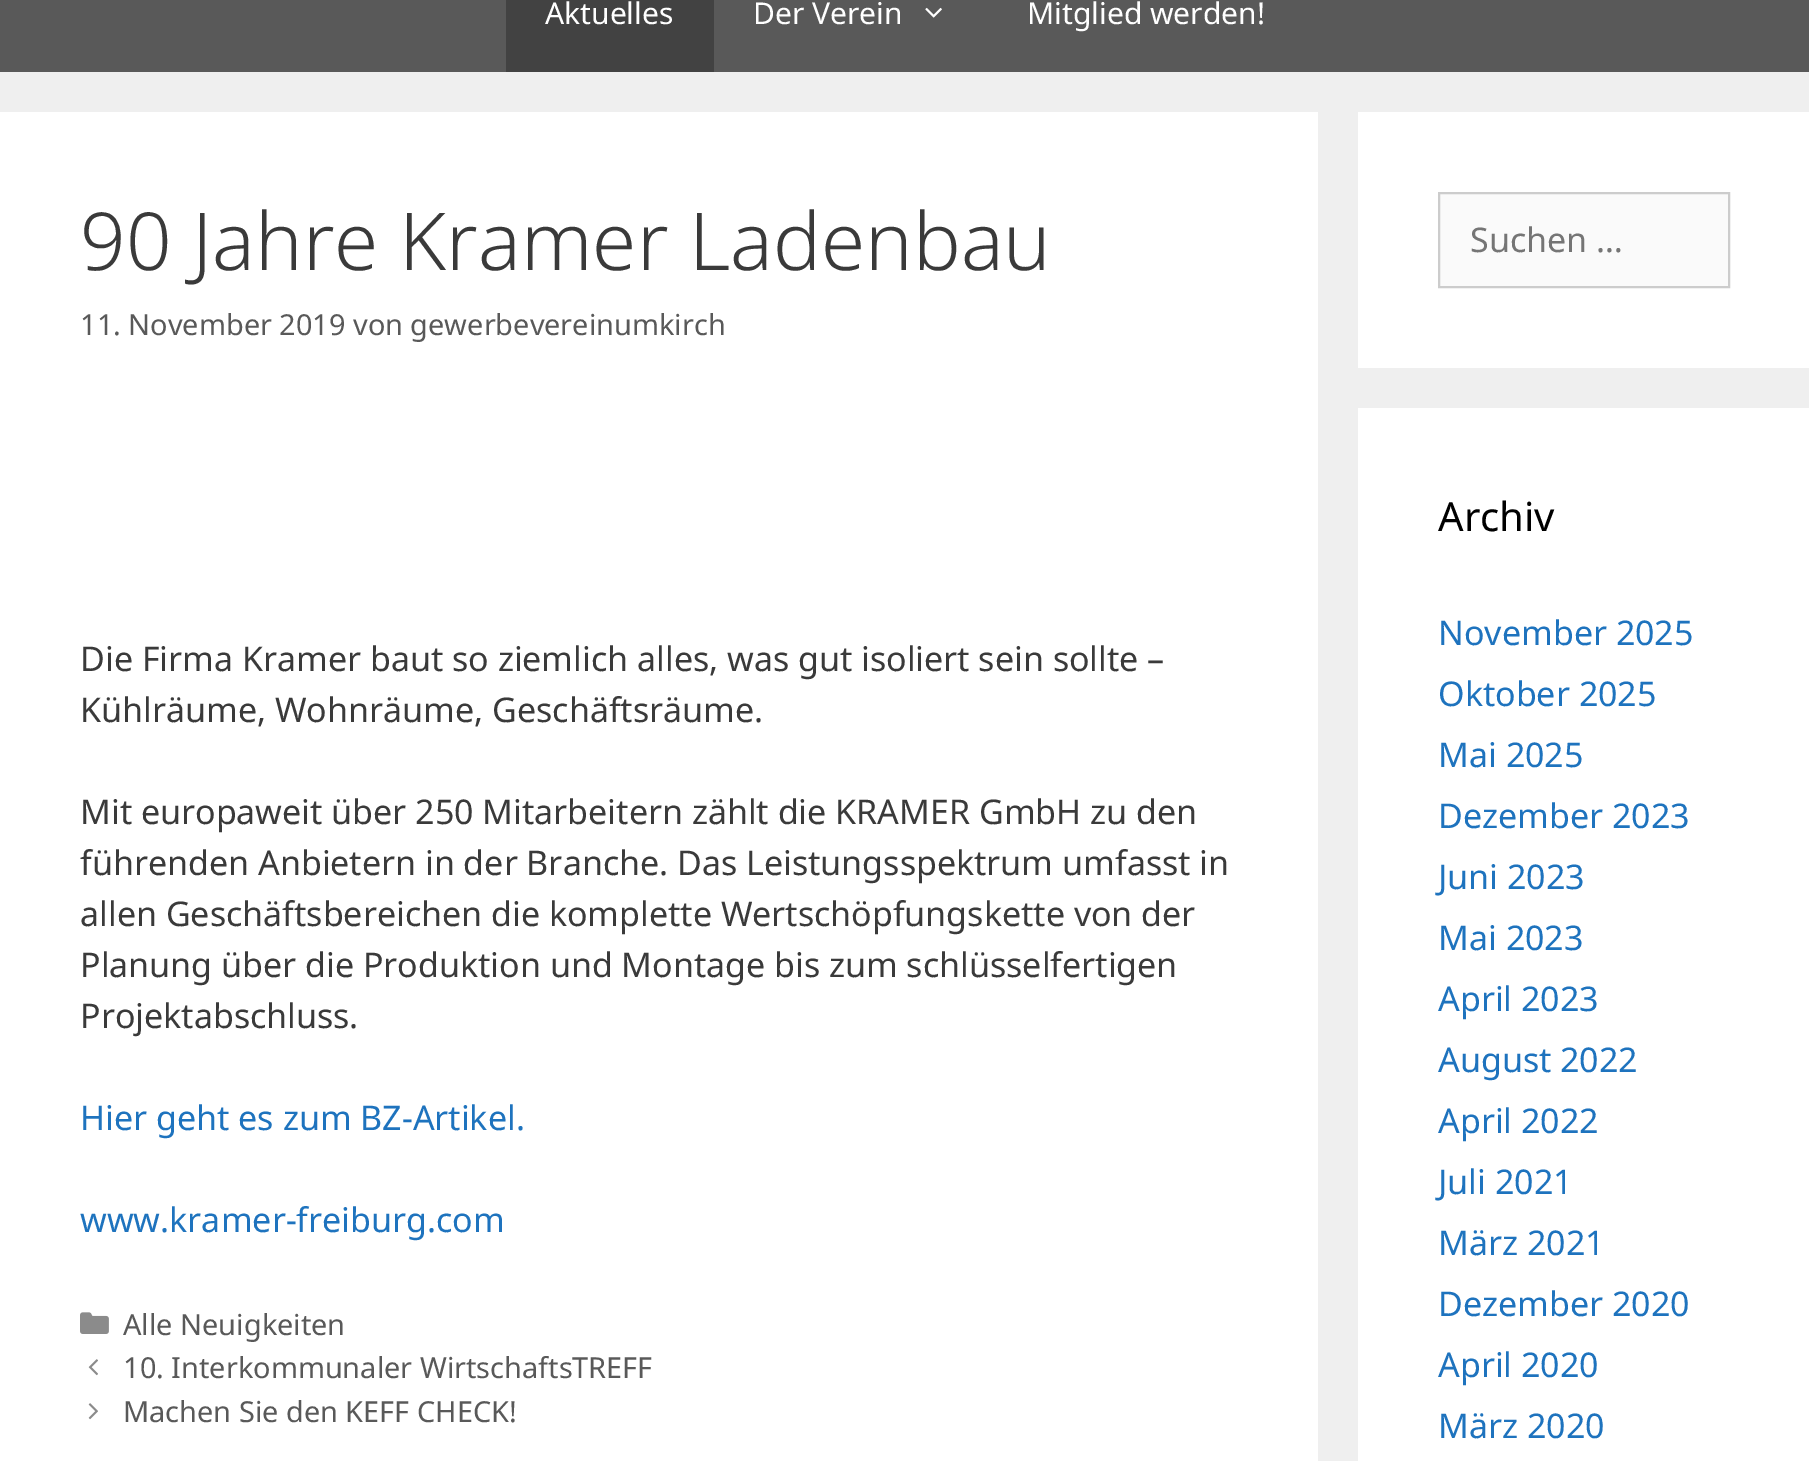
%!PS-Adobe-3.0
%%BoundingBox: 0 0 1809 1461
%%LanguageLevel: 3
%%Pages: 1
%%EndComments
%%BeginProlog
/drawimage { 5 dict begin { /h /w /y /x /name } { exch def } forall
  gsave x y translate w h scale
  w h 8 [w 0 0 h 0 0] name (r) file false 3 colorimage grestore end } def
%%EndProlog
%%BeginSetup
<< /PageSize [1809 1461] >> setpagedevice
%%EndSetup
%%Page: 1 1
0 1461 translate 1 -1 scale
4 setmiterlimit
0.937 setgray
0 0 1809 1461 rectfill
0.349 setgray
0 0 1809 72 rectfill
0.259 setgray
506 0 208 72 rectfill
(images/1.raw) 925 7 17 11 drawimage
1 setgray
0 112 1318 1349 rectfill
(images/2.raw) 80 1312 29 22 drawimage
(images/3.raw) 88 1359 10 17 drawimage
(images/4.raw) 88 1403 10 17 drawimage
1358 112 451 256 rectfill
0.98 setgray
newpath 1439 193 moveto 1729 193 lineto 1729 287 lineto 1439 287 lineto closepath gsave fill grestore
0.8 setgray
2 setlinewidth
stroke
1 setgray
1358 408 451 1053 rectfill
/NotoSans-Regular [30 0 0 -30 0 0] selectfont
545 24 moveto (Aktuelles) show
753 24 moveto (Der Verein) show
1027 24 moveto (Mitglied werden!) show
/NotoSans-Light [80 0 0 -80 0 0] selectfont
0.227 setgray
80 270 moveto (90 Jahre Kramer Ladenbau) show
/NotoSans-Regular [28.9 0 0 -28.9 0 0] selectfont
0.349 setgray
80 335 moveto (11. November 2019 von gewerbevereinumkirch) show
/NotoSans-Regular [34 0 0 -34 0 0] selectfont
0.227 setgray
80 671 moveto (Die Firma Kramer baut so ziemlich alles, was gut isoliert sein sollte –) show
80 722 moveto (Kühlräume, Wohnräume, Geschäftsräume.) show
80 824 moveto (Mit europaweit über 250 Mitarbeitern zählt die KRAMER GmbH zu den) show
80 875 moveto (führenden Anbietern in der Branche. Das Leistungsspektrum umfasst in) show
80 926 moveto (allen Geschäftsbereichen die komplette Wertschöpfungskette von der) show
80 977 moveto (Planung über die Produktion und Montage bis zum schlüsselfertigen) show
80 1028 moveto (Projektabschluss.) show
0.118 0.451 0.745 setrgbcolor
80 1130 moveto (Hier geht es zum BZ-Artikel.) show
80 1232 moveto (www.kramer-freiburg.com) show
/NotoSans-Regular [28.9 0 0 -28.9 0 0] selectfont
0.349 setgray
123 1335 moveto (Alle Neuigkeiten) show
123 1378 moveto (10. Interkommunaler WirtschaftsTREFF) show
123 1422 moveto (Machen Sie den KEFF CHECK!) show
/NotoSans-Regular [34 0 0 -34 0 0] selectfont
0.459 setgray
1470 252 moveto (Suchen …) show
/NotoSans-Regular [40 0 0 -40 0 0] selectfont
0 setgray
1438 531 moveto (Archiv) show
/NotoSans-Regular [34 0 0 -34 0 0] selectfont
0.118 0.451 0.745 setrgbcolor
1438 645 moveto (November 2025) show
1438 706 moveto (Oktober 2025) show
1438 767 moveto (Mai 2025) show
1438 828 moveto (Dezember 2023) show
1438 889 moveto (Juni 2023) show
1438 950 moveto (Mai 2023) show
1438 1011 moveto (April 2023) show
1438 1072 moveto (August 2022) show
1438 1133 moveto (April 2022) show
1438 1194 moveto (Juli 2021) show
1438 1255 moveto (März 2021) show
1438 1316 moveto (Dezember 2020) show
1438 1377 moveto (April 2020) show
1438 1438 moveto (März 2020) show
showpage
%%EOF
